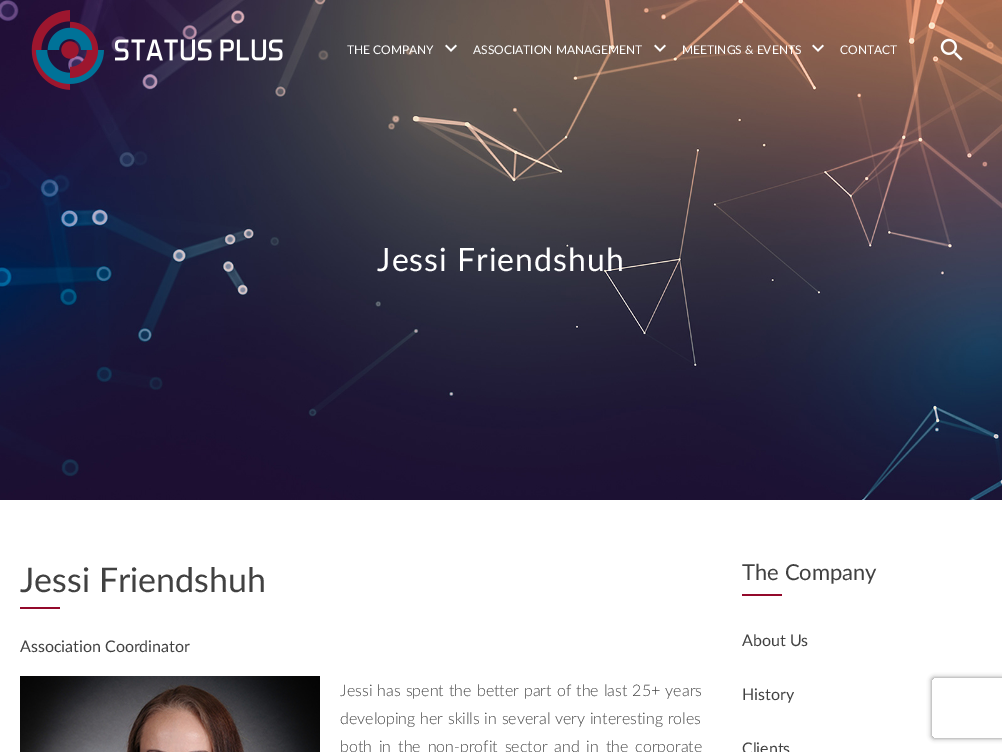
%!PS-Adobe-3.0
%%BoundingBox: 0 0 1002 752
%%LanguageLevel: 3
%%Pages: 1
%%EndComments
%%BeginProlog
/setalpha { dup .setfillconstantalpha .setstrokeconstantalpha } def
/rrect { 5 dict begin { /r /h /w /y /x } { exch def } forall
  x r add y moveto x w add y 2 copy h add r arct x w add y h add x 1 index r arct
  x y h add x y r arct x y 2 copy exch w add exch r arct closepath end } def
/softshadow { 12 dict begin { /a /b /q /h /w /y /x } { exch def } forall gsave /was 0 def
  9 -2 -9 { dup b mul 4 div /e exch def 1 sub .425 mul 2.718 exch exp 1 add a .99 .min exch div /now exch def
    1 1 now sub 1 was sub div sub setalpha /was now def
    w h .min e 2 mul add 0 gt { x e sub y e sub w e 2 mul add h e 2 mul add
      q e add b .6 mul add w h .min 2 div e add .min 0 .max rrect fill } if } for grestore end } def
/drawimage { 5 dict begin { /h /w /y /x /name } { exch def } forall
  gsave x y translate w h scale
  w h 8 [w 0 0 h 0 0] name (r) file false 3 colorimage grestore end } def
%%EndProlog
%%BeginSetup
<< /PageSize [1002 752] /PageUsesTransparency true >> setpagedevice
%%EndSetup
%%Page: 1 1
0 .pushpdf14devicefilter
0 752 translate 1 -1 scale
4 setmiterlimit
1 setgray
0 0 1002 752 rectfill
(images/6.raw) 0 0 1002 500 drawimage
(images/1.raw) 31 10 252 80 drawimage
(images/2.raw) 445 44 12 8 drawimage
(images/3.raw) 654 44 12 8 drawimage
(images/4.raw) 812 44 12 8 drawimage
(images/5.raw) 940 38 23 23 drawimage
0.576 0.035 0.169 setrgbcolor
20 607 40 2 rectfill
(images/7.raw) 20 676 300 76 drawimage
742 594 40 2 rectfill
gsave
newpath 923 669 moveto 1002 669 lineto 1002 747 lineto 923 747 lineto closepath 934 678 moveto 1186 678 lineto 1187 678 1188 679 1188 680 curveto 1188 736 lineto 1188 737 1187 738 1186 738 curveto 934 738 lineto 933 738 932 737 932 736 curveto 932 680 lineto 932 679 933 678 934 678 curveto closepath eoclip newpath
0.502 setgray
932 678 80 60 2 2.5 1 softshadow
grestore
/Lato-Regular [12 0 0 -12 0 0] selectfont
1 setgray
347 54 moveto (THE COMPANY) show
473 54 moveto (ASSOCIATION MANAGEMENT) show
682 54 moveto (MEETINGS & EVENTS) show
840 54 moveto (CONTACT) show
/Lato-Regular [32 0 0 -32 0 0] selectfont
377 271 moveto 1 0 (Jessi Friendshuh) ashow
/Lato-Regular [34 0 0 -34 0 0] selectfont
0.255 setgray
20 592 moveto (Jessi Friendshuh) show
/Lato-Regular [16 0 0 -16 0 0] selectfont
20 652 moveto (Association Coordinator) show
/Lato-Light [16 0 0 -16 0 0] selectfont
340 696 moveto 0.75 0 32 (Jessi has spent the better part of the last 25+ years) widthshow
340 724 moveto 0.5 0 32 (developing her skills in several very interesting roles) widthshow
340 752 moveto 2.5 0 32 (both in the non-profit sector and in the corporate) widthshow
/Lato-Regular [22 0 0 -22 0 0] selectfont
742 580 moveto (The Company) show
/Lato-Regular [16 0 0 -16 0 0] selectfont
742 646 moveto (About Us) show
742 700 moveto (History) show
742 754 moveto (Clients) show
.poppdf14devicefilter showpage
%%EOF
